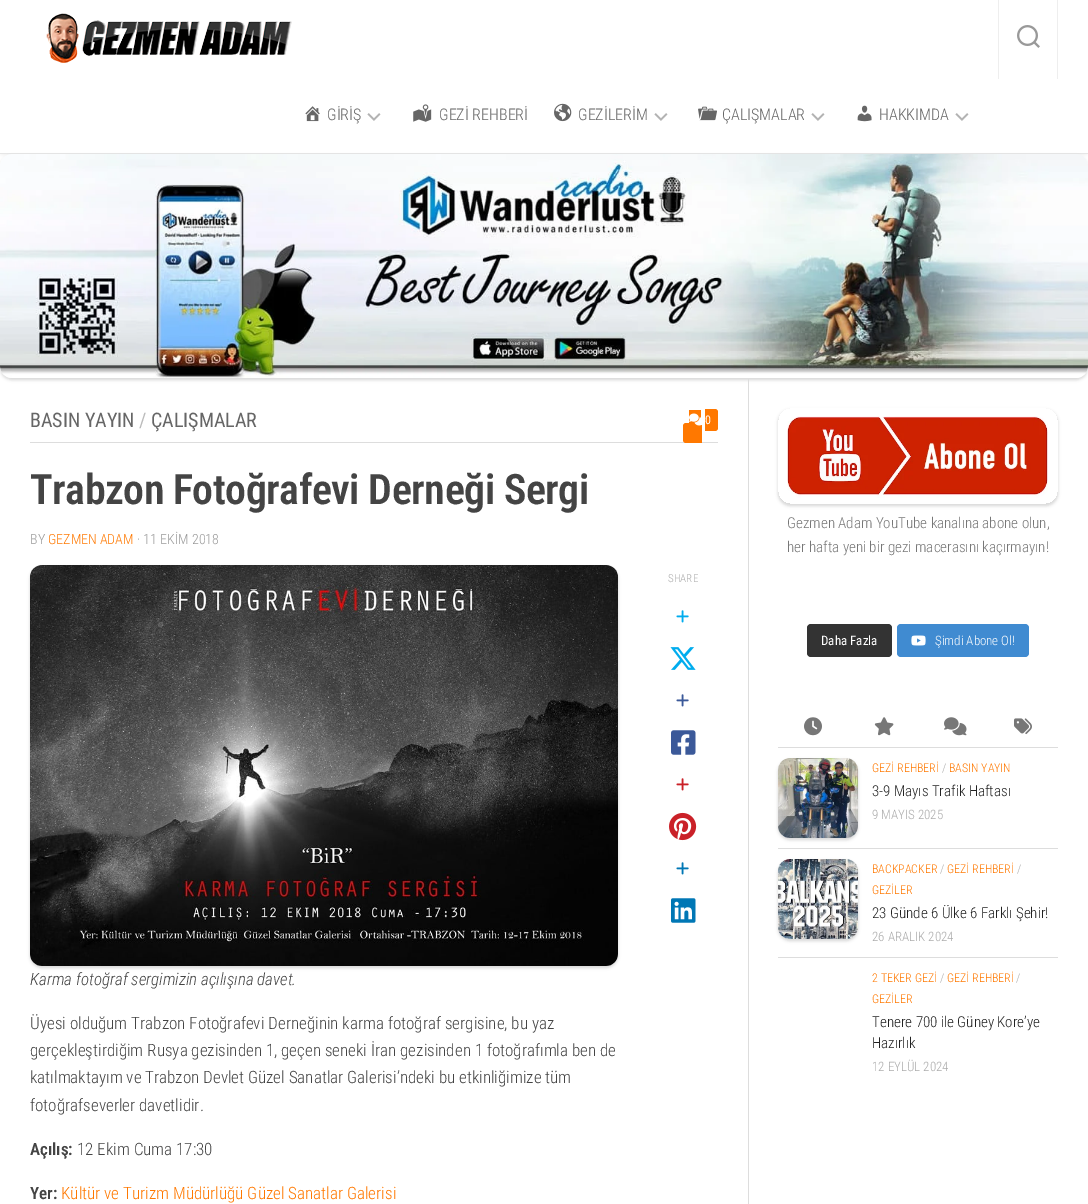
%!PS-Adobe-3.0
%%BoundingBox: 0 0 1088 1204
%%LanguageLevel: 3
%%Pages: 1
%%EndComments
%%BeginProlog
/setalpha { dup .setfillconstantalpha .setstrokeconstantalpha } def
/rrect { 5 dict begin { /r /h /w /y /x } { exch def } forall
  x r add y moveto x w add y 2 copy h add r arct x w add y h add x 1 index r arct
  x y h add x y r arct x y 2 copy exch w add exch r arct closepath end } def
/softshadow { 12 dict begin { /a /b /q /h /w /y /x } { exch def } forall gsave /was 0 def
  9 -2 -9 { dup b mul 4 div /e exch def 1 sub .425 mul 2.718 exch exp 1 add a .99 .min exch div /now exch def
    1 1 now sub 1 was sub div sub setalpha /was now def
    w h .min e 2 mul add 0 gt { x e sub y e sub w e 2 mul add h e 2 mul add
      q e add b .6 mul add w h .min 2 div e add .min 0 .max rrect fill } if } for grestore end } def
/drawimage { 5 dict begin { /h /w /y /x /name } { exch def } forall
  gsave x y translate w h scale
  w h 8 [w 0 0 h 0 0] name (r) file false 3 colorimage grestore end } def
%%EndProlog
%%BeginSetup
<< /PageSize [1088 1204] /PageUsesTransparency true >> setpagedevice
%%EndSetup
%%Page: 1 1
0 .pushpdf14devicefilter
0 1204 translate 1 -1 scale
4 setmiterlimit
1 setgray
0 0 1088 1204 rectfill
gsave
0 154 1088 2 rectclip
0 setgray
0 0 1088 154 0 2.5 0.1 softshadow
grestore
0.902 setgray
0 153 1088 1 rectfill
0.933 setgray
1057 0 1 79 rectfill
998 0 1 79 rectfill
(images/1.raw) 1017 25 23 23 drawimage
(images/2.raw) 46 13 246 50 drawimage
(images/3.raw) 305 106 15 16 drawimage
(images/4.raw) 367 113 14 8 drawimage
(images/5.raw) 413 104 19 18 drawimage
(images/6.raw) 554 103 18 19 drawimage
(images/4.raw) 654 113 14 8 drawimage
(images/7.raw) 698 106 19 15 drawimage
(images/4.raw) 811 113 14 8 drawimage
(images/8.raw) 857 105 15 17 drawimage
(images/4.raw) 955 113 14 8 drawimage
0 setgray
0 156 1088 224 12 1.5 0.15 softshadow
(images/9.raw) 0 154 1088 224 drawimage
0.867 setgray
748 379 1 825 rectfill
30 442 688 1 rectfill
1 0.471 0 setrgbcolor
newpath 686 423 moveto 702 423 lineto 702 443 lineto 686 443 lineto 684.5 443 683 441.5 683 440 curveto 683 426 lineto 683 424.5 684.5 423 686 423 curveto closepath fill
689 410 12 13 rectfill
newpath 705 409 moveto 715 409 lineto 716.5 409 718 410.5 718 412 curveto 718 428 lineto 718 429.5 716.5 431 715 431 curveto 705 431 lineto closepath fill
(images/10.raw) 689 413 13 13 drawimage
(images/11.raw) 676 610 13 13 drawimage
(images/12.raw) 670 647 26 23 drawimage
(images/13.raw) 676 694 13 13 drawimage
(images/14.raw) 671 730 25 25 drawimage
(images/15.raw) 676 778 13 13 drawimage
(images/16.raw) 669 812 28 29 drawimage
(images/17.raw) 676 862 13 13 drawimage
(images/18.raw) 671 898 25 25 drawimage
0 setgray
30 567 588 401 12 1.5 0.15 softshadow
(images/19.raw) 30 565 588 401 drawimage
gsave
newpath 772 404 moveto 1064 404 lineto 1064 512 lineto 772 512 lineto closepath 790 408 moveto 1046 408 lineto 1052.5 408 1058 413.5 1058 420 curveto 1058 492 lineto 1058 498.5 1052.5 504 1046 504 curveto 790 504 lineto 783.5 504 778 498.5 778 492 curveto 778 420 lineto 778 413.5 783.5 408 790 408 curveto closepath eoclip newpath
778 410 280 96 12 1.5 0.15 softshadow
grestore
(images/20.raw) 787 416 261 82 drawimage
0.2 setgray
807 624 85 33 4 rrect fill
0.251 0.545 0.82 setrgbcolor
897 624 132 33 4 rrect fill
(images/21.raw) 911 635 15 11 drawimage
0.867 setgray
778 747 280 1 rectfill
(images/22.raw) 804 717 18 19 drawimage
(images/23.raw) 874 717 20 19 drawimage
(images/24.raw) 944 717 23 19 drawimage
(images/25.raw) 1014 718 18 17 drawimage
778 848 280 1 rectfill
gsave
newpath 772 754 moveto 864 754 lineto 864 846 lineto 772 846 lineto closepath 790 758 moveto 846 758 lineto 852.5 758 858 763.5 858 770 curveto 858 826 lineto 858 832.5 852.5 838 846 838 curveto 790 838 lineto 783.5 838 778 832.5 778 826 curveto 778 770 lineto 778 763.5 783.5 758 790 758 curveto closepath eoclip newpath
0 setgray
778 760 80 80 12 1.5 0.15 softshadow
grestore
(images/26.raw) 778 758 80 80 drawimage
778 957 280 1 rectfill
gsave
newpath 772 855 moveto 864 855 lineto 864 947 lineto 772 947 lineto closepath 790 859 moveto 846 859 lineto 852.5 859 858 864.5 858 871 curveto 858 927 lineto 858 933.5 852.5 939 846 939 curveto 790 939 lineto 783.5 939 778 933.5 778 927 curveto 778 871 lineto 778 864.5 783.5 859 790 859 curveto closepath eoclip newpath
0 setgray
778 861 80 80 12 1.5 0.15 softshadow
grestore
(images/27.raw) 778 859 80 80 drawimage
/RobotoCondensed-Light [16 0 0 -16 0 0] selectfont
0.4 setgray
327 120 moveto (GİRİŞ) show
439 120 moveto (GEZİ REHBERİ) show
578 120 moveto (GEZİLERİM) show
722 120 moveto (ÇALIŞMALAR) show
879 120 moveto (HAKKIMDA) show
/RobotoCondensed-Regular [20 0 0 -20 0 0] selectfont
30 427 moveto (BASIN YAYIN) show
0.733 setgray
139 427 moveto (/) show
0.4 setgray
151 427 moveto (ÇALIŞMALAR) show
/RobotoCondensed-Regular [12 0 0 -12 0 0] selectfont
1 setgray
705 424 moveto (0) show
/RobotoCondensed-SemiBold [42 0 0 -42 0 0] selectfont
0.267 setgray
30 504 moveto -0.5 0 (Trabzon Fotoğrafevi Derneği Sergi) ashow
/RobotoCondensed-Light [14 0 0 -14 0 0] selectfont
0.6 setgray
30 544 moveto (BY) show
1 0.471 0 setrgbcolor
48 544 moveto (GEZMEN ADAM) show
0.6 setgray
137 544 moveto (· 11 EKİM 2018) show
/RobotoCondensed-Light [11 0 0 -11 0 0] selectfont
0.667 setgray
668 582 moveto (SHARE) show
/RobotoCondensed-LightItalic [17 0 0 -17 0 0] selectfont
0.267 setgray
30 985 moveto (Karma fotoğraf sergimizin açılışına davet.) show
/RobotoCondensed-Light [17 0 0 -17 0 0] selectfont
30 1029 moveto (Üyesi olduğum Trabzon Fotoğrafevi Derneğinin karma fotoğraf sergisine, bu yaz) show
30 1056 moveto (gerçekleştirdiğim Rusya gezisinden 1, geçen seneki İran gezisinden 1 fotoğrafımla ben de) show
30 1083 moveto (katılmaktayım ve Trabzon Devlet Güzel Sanatlar Galerisi’ndeki bu etkinliğimize tüm) show
30 1111 moveto (fotoğrafseverler davetlidir.) show
/RobotoCondensed-SemiBold [17 0 0 -17 0 0] selectfont
30 1155 moveto (Açılış:) show
/RobotoCondensed-Light [17 0 0 -17 0 0] selectfont
77 1155 moveto (12 Ekim Cuma 17:30) show
/RobotoCondensed-SemiBold [17 0 0 -17 0 0] selectfont
30 1199 moveto (Yer:) show
/RobotoCondensed-Light [17 0 0 -17 0 0] selectfont
1 0.471 0 setrgbcolor
61 1199 moveto (Kültür ve Turizm Müdürlüğü Güzel Sanatlar Galerisi) show
/RobotoCondensed-Light [15 0 0 -15 0 0] selectfont
0.467 setgray
787 528 moveto (Gezmen Adam YouTube kanalına abone olun,) show
787 552 moveto (her hafta yeni bir gezi macerasını kaçırmayın!) show
/RobotoCondensed-Regular [13 0 0 -13 0 0] selectfont
1 setgray
821 645 moveto (Daha Fazla) show
/RobotoCondensed-Light [13 0 0 -13 0 0] selectfont
935 645 moveto (Şimdi Abone Ol!) show
/RobotoCondensed-Light [12 0 0 -12 0 0] selectfont
1 0.471 0 setrgbcolor
872 772 moveto (GEZİ REHBERİ) show
0.667 setgray
942 772 moveto (/) show
1 0.471 0 setrgbcolor
949 772 moveto (BASIN YAYIN) show
/RobotoCondensed-Light [15 0 0 -15 0 0] selectfont
0.133 setgray
872 796 moveto (3-9 Mayıs Trafik Haftası) show
/RobotoCondensed-Light [13 0 0 -13 0 0] selectfont
0.667 setgray
872 819 moveto (9 MAYIS 2025) show
/RobotoCondensed-Light [12 0 0 -12 0 0] selectfont
1 0.471 0 setrgbcolor
872 873 moveto (BACKPACKER) show
0.667 setgray
940 873 moveto (/) show
1 0.471 0 setrgbcolor
947 873 moveto (GEZİ REHBERİ) show
0.667 setgray
1017 873 moveto (/) show
1 0.471 0 setrgbcolor
872 894 moveto (GEZİLER) show
/RobotoCondensed-Light [15 0 0 -15 0 0] selectfont
0.133 setgray
872 918 moveto (23 Günde 6 Ülke 6 Farklı Şehir!) show
/RobotoCondensed-Light [13 0 0 -13 0 0] selectfont
0.667 setgray
872 941 moveto (26 ARALIK 2024) show
/RobotoCondensed-Light [12 0 0 -12 0 0] selectfont
1 0.471 0 setrgbcolor
872 982 moveto (2 TEKER GEZİ) show
0.667 setgray
940 982 moveto (/) show
1 0.471 0 setrgbcolor
947 982 moveto (GEZİ REHBERİ) show
0.667 setgray
1016 982 moveto (/) show
1 0.471 0 setrgbcolor
872 1003 moveto (GEZİLER) show
/RobotoCondensed-Light [15 0 0 -15 0 0] selectfont
0.133 setgray
872 1027 moveto (Tenere 700 ile Güney Kore’ye) show
872 1048 moveto (Hazırlık) show
/RobotoCondensed-Light [13 0 0 -13 0 0] selectfont
0.667 setgray
872 1071 moveto (12 EYLÜL 2024) show
.poppdf14devicefilter showpage
%%EOF
